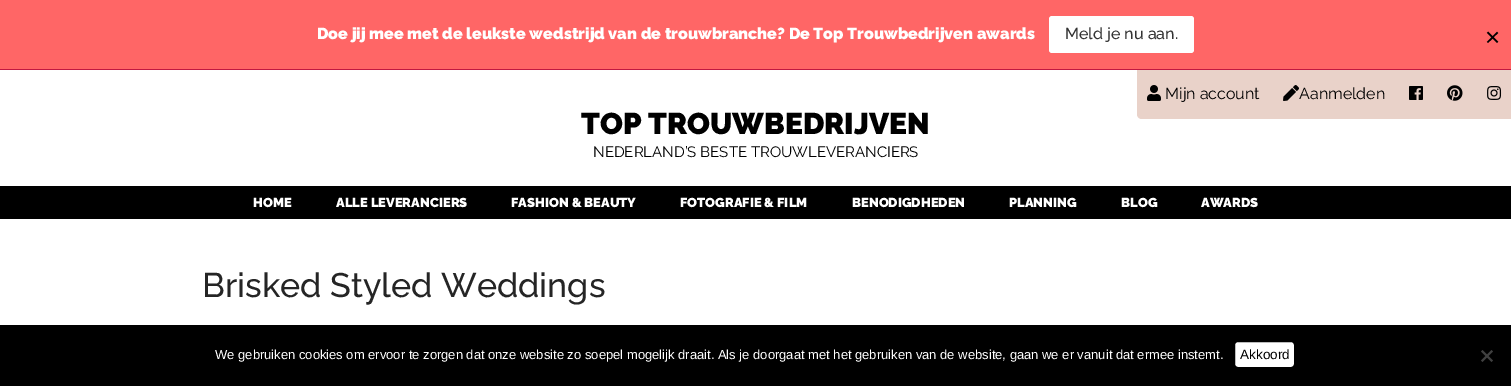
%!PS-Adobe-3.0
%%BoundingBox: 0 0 1511 386
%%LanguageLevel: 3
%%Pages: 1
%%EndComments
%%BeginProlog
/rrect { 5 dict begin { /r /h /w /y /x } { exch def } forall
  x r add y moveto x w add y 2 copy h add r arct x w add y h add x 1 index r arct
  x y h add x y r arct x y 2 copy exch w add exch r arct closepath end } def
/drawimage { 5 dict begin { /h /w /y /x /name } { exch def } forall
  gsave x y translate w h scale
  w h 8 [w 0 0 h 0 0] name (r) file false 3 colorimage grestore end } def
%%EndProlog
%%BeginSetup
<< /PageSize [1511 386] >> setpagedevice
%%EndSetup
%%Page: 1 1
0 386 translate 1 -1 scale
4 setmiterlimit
1 setgray
0 0 1511 386 rectfill
1 0.4 0.4 setrgbcolor
0 0 1511 69 rectfill
0.761 0.094 0.255 setrgbcolor
0 69 1511 1 rectfill
1 setgray
1049 16 145 37 3 rrect fill
0.914 0.824 0.788 setrgbcolor
newpath 1137 70 moveto 1511 70 lineto 1511 119 lineto 1142 119 lineto 1139 119 1137 117 1137 114 curveto closepath fill
(images/1.raw) 1147 85 14 16 drawimage
(images/2.raw) 1283 85 16 16 drawimage
(images/3.raw) 1409 86 14 14 drawimage
(images/4.raw) 1447 85 16 16 drawimage
(images/5.raw) 1487 86 15 14 drawimage
0 setgray
0 186 1511 33 rectfill
0 325 1511 61 rectfill
1 setgray
1234 341 61 27 4 rrect gsave fill grestore
0 setgray
2 setlinewidth
stroke
0.251 setgray
newpath 1491.5 350 moveto 1493 351.5 lineto 1482.5 362 lineto 1481 360.5 lineto closepath fill
newpath 1481 351.5 moveto 1482.5 350 lineto 1493 360.5 lineto 1491.5 362 lineto closepath fill
/Raleway-Black [16 0 0 -16 0 0] selectfont
1 setgray
317 39 moveto (Doe jij mee met de leukste wedstrijd van de trouwbranche? De Top Trouwbedrijven awards) show
/Raleway-Medium [16 0 0 -16 0 0] selectfont
0.2 setgray
1065 39 moveto (Meld je nu aan.) show
/LiberationSans-Regular [26 0 0 -26 0 0] selectfont
0 setgray
1485 46 moveto (×) show
/Raleway-Regular [16 0 0 -16 0 0] selectfont
1165 99 moveto (Mijn account) show
1299 99 moveto (Aanmelden) show
/Raleway-Black [30 0 0 -30 0 0] selectfont
581 134 moveto (TOP TROUWBEDRIJVEN) show
/Raleway-Regular [15 0 0 -15 0 0] selectfont
593 157 moveto (NEDERLAND’S BESTE TROUWLEVERANCIERS) show
/Raleway-Black [13 0 0 -13 0 0] selectfont
1 setgray
253 207 moveto (HOME) show
336 207 moveto (ALLE LEVERANCIERS) show
511 207 moveto (FASHION & BEAUTY) show
680 207 moveto (FOTOGRAFIE & FILM) show
852 207 moveto (BENODIGDHEDEN) show
1009 207 moveto (PLANNING) show
1121 207 moveto (BLOG) show
1201 207 moveto (AWARDS) show
/Raleway-Medium [34 0 0 -34 0 0] selectfont
0.145 setgray
202 297 moveto (Brisked Styled Weddings) show
/LiberationSans-Regular [13 0 0 -13 0 0] selectfont
1 setgray
215 359 moveto (We gebruiken cookies om ervoor te zorgen dat onze website zo soepel mogelijk draait. Als je doorgaat met het gebruiken van de website, gaan we er vanuit dat ermee instemt.) show
/LiberationSans-Regular [13.5 0 0 -13.5 0 0] selectfont
0 setgray
1240 359 moveto (Akkoord) show
showpage
%%EOF
